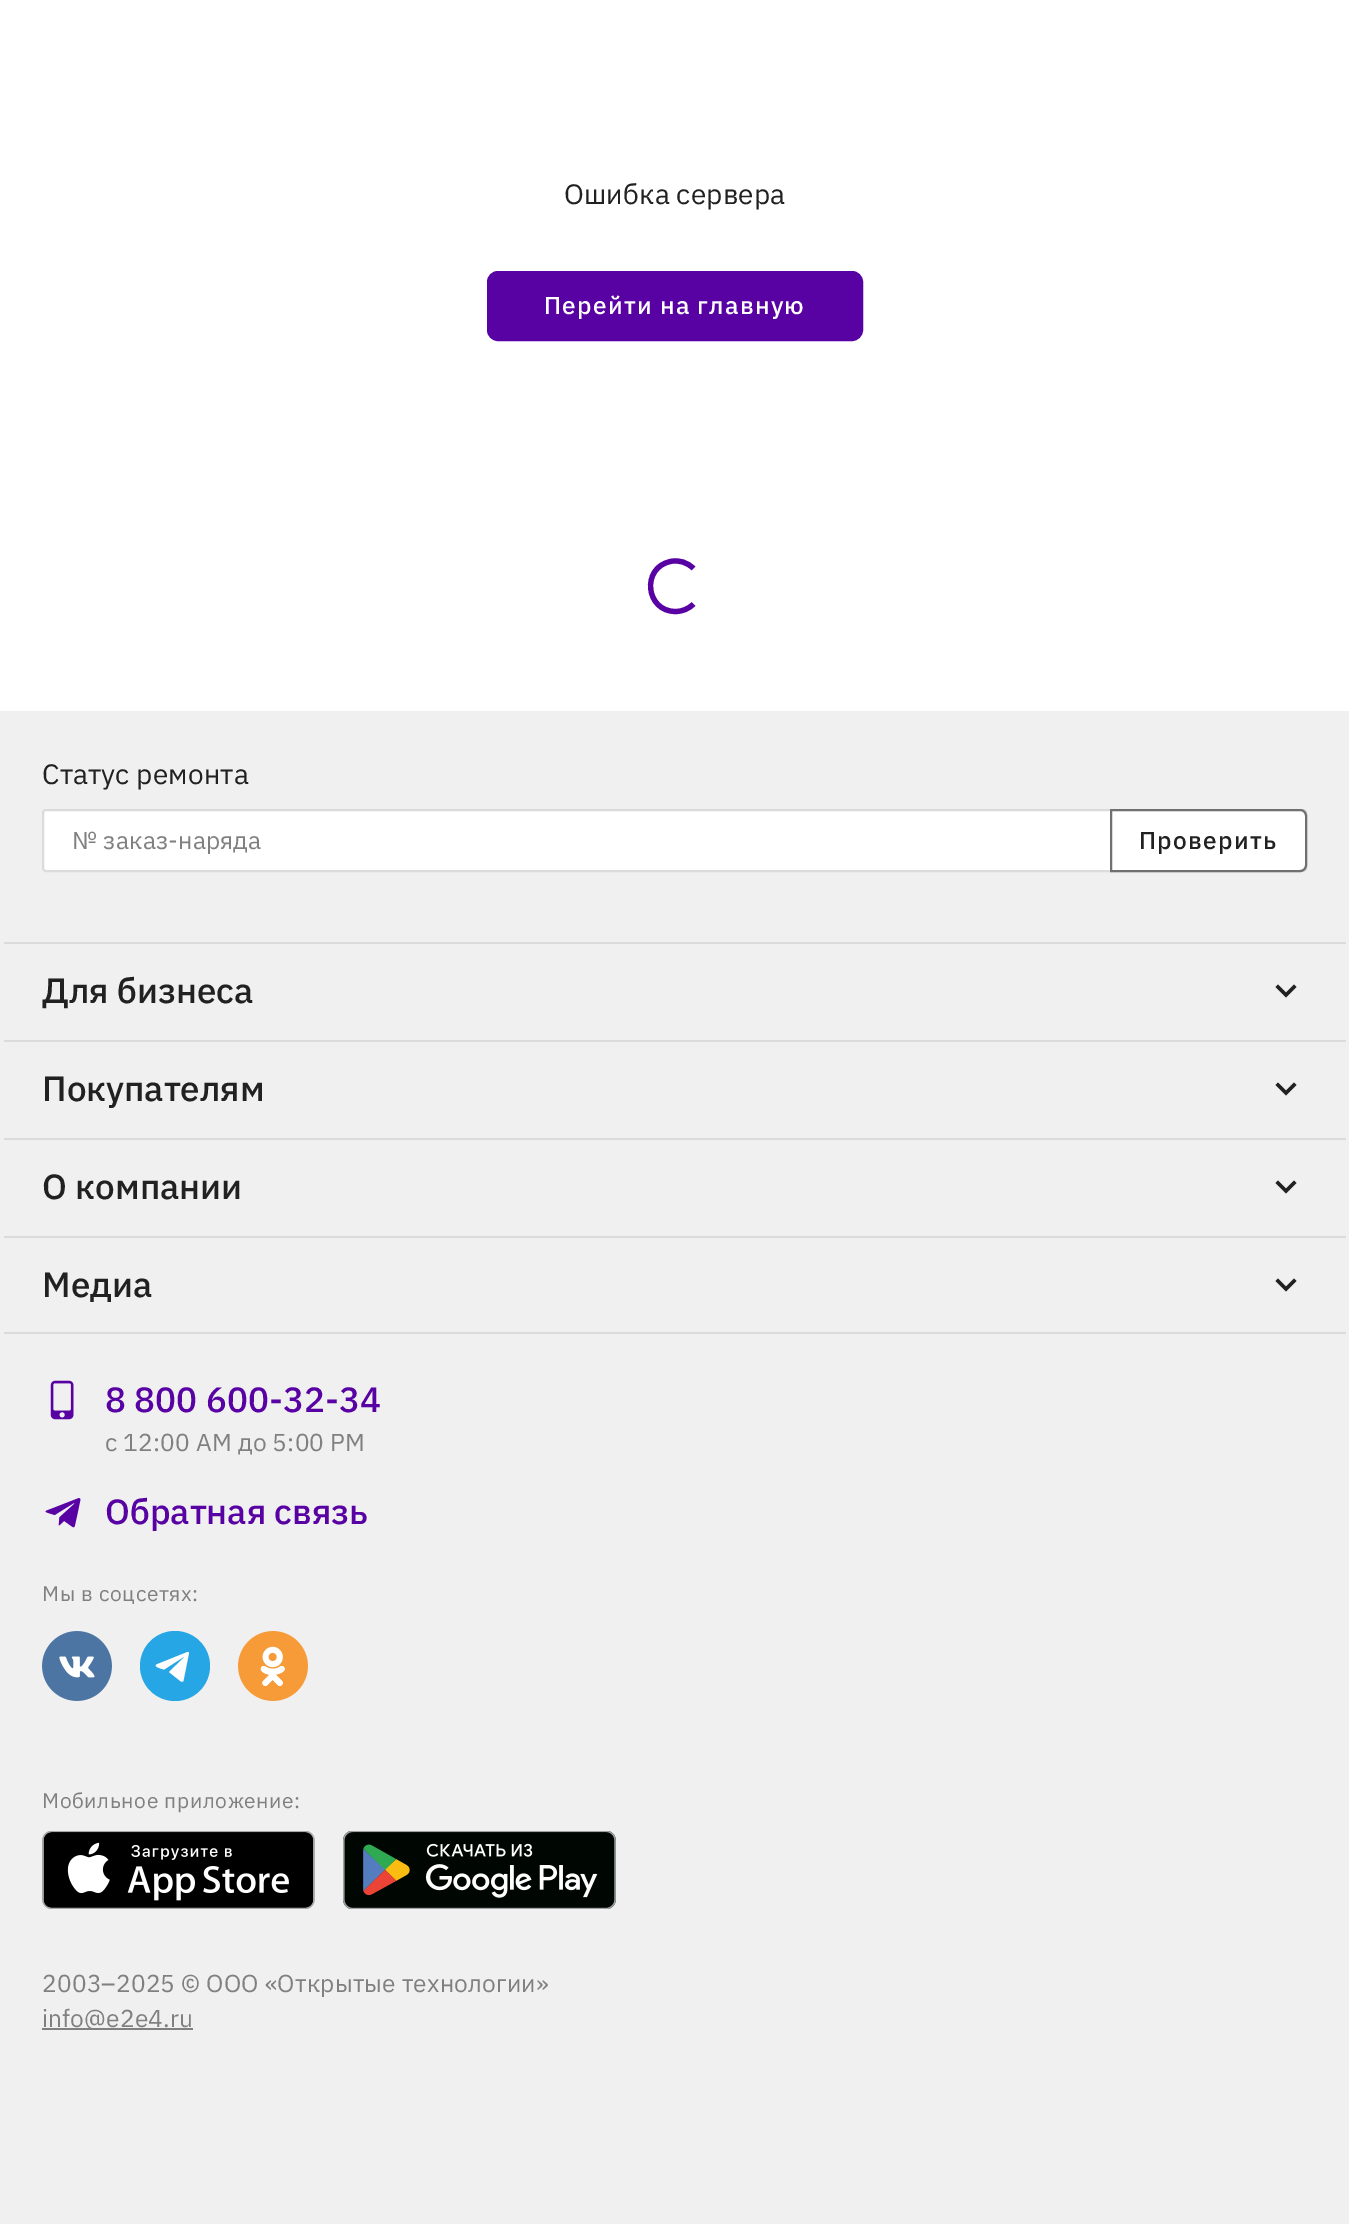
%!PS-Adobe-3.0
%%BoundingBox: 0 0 1349 2224
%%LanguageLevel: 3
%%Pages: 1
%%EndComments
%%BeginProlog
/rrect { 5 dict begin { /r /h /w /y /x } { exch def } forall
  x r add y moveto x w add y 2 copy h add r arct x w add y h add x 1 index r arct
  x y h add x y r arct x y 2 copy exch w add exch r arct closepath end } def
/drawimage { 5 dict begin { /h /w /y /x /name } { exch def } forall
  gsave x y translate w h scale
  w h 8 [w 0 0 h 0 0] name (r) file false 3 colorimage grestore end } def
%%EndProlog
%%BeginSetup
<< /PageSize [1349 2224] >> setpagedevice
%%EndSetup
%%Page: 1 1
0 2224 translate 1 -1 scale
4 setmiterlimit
1 setgray
0 0 1349 2224 rectfill
0.345 0.008 0.639 setrgbcolor
488 272 374 68 10 rrect gsave fill grestore
2 setlinewidth
stroke
5.2 setlinewidth
newpath 693.5 604 moveto 688.5 609 682 611.5 675.5 611.5 curveto 645.5 611.5 641 567.5 670.5 561.5 curveto 679 559.5 687.5 562.5 693.5 568.5 curveto stroke
0.941 setgray
0 711 1349 1513 rectfill
1 setgray
43 810 1263 61 3 rrect gsave fill grestore
0.859 setgray
2 setlinewidth
stroke
1 setgray
newpath 1111 810 moveto 1300 810 lineto 1303.5 810 1306 812.5 1306 816 curveto 1306 865 lineto 1306 868.5 1303.5 871 1300 871 curveto 1111 871 lineto closepath gsave fill grestore
0.439 setgray
stroke
0.859 setgray
4 942 1342 2 rectfill
0.129 setgray
newpath 1278 984.5 moveto 1286 992.5 lineto 1294 984.5 lineto 1296.5 987 lineto 1286 997.5 lineto 1275.5 987 lineto closepath fill
0.859 setgray
4 1040 1342 2 rectfill
0.129 setgray
newpath 1278 1082.5 moveto 1286 1090.5 lineto 1294 1082.5 lineto 1296.5 1085 lineto 1286 1095.5 lineto 1275.5 1085 lineto closepath fill
0.859 setgray
4 1138 1342 2 rectfill
0.129 setgray
newpath 1278 1180.5 moveto 1286 1188.5 lineto 1294 1180.5 lineto 1296.5 1183 lineto 1286 1193.5 lineto 1275.5 1183 lineto closepath fill
0.859 setgray
4 1236 1342 2 rectfill
4 1332 1342 2 rectfill
0.129 setgray
newpath 1278 1278.5 moveto 1286 1286.5 lineto 1294 1278.5 lineto 1296.5 1281 lineto 1286 1291.5 lineto 1275.5 1281 lineto closepath fill
(images/1.raw) 50 1380 24 40 drawimage
(images/2.raw) 45 1498 36 30 drawimage
(images/3.raw) 42 1631 70 70 drawimage
0.153 0.651 0.898 setrgbcolor
newpath 175 1666 35 0 360 arc closepath fill
0.996 setgray
newpath 189 1653 moveto 183.5 1680.5 lineto 183.5 1681.5 182 1682 181 1681.5 curveto 169 1672 lineto 183.5 1658 lineto 184 1657.5 184.5 1657 183.5 1657 curveto 164 1669.5 lineto 160.5 1668.5 lineto 160 1668 153.5 1666.5 156.5 1664.5 curveto 187.5 1652 lineto 188 1652 189 1652 189 1653 curveto closepath fill
(images/4.raw) 238 1631 70 70 drawimage
(images/5.raw) 42 1831 273 78 drawimage
(images/6.raw) 343 1831 273 78 drawimage
0.502 setgray
42 2028 151 2 rectfill
/IBMPlexSans-Regular [28 0 0 -28 0 0] selectfont
0.129 setgray
564 204 moveto 0.15 0 (Ошибка сервера) ashow
/IBMPlexSans-Medium [24.5 0 0 -24.5 0 0] selectfont
1 setgray
544 314 moveto 1.25 0 (Перейти на главную) ashow
/IBMPlexSans-Regular [28 0 0 -28 0 0] selectfont
0.129 setgray
42 784 moveto 0.15 0 (Статус ремонта) ashow
/IBMPlexSans-Regular [24.5 0 0 -24.5 0 0] selectfont
0.502 setgray
72 849 moveto 0.15 0 (№ заказ-наряда) ashow
/IBMPlexSans-Medium [24.5 0 0 -24.5 0 0] selectfont
0.129 setgray
1139 849 moveto 1.25 0 (Проверить) ashow
/IBMPlexSans-Medium [35 0 0 -35 0 0] selectfont
42 1003 moveto (Для бизнеса) show
42 1101 moveto (Покупателям) show
42 1199 moveto (О компании) show
42 1297 moveto (Медиа) show
0.345 0.008 0.639 setrgbcolor
105 1412 moveto (8 800 600‑32‑34) show
/IBMPlexSans-Regular [24.5 0 0 -24.5 0 0] selectfont
0.502 setgray
105 1451 moveto 0.15 0 (c 12:00 AM до 5:00 PM) ashow
/IBMPlexSans-Medium [35 0 0 -35 0 0] selectfont
0.345 0.008 0.639 setrgbcolor
105 1524 moveto (Обратная связь) show
/IBMPlexSans-Regular [21 0 0 -21 0 0] selectfont
0.502 setgray
42 1601 moveto 0.6 0 (Мы в соцсетях:) ashow
42 1808 moveto 0.6 0 (Мобильное приложение:) ashow
/IBMPlexSans-Regular [24.5 0 0 -24.5 0 0] selectfont
42 1992 moveto 0.15 0 (2003–2025 © ООО «Открытые технологии») ashow
42 2027 moveto 0.15 0 (info@e2e4.ru) ashow
showpage
%%EOF
